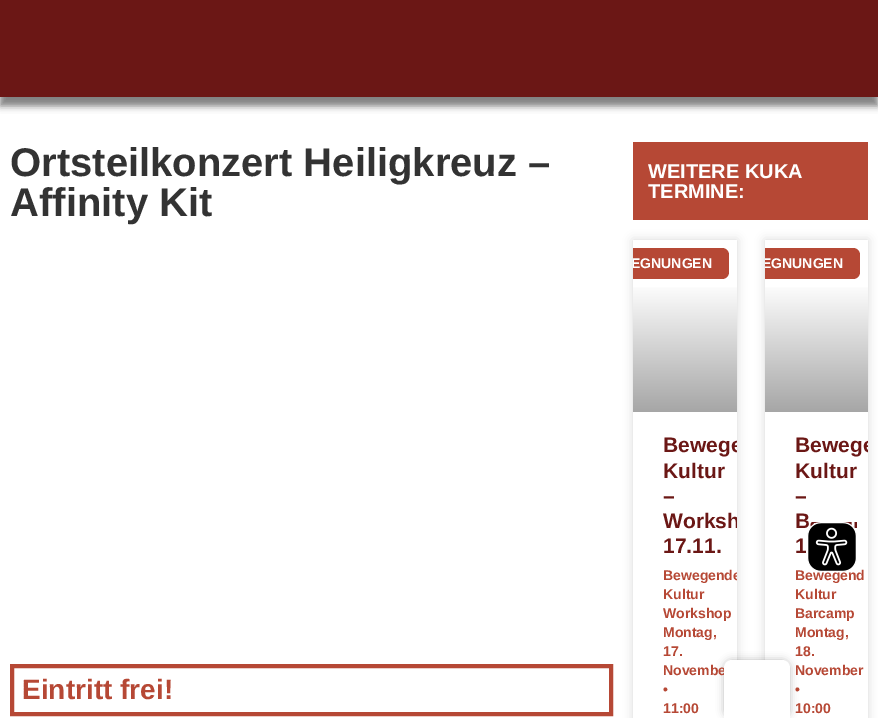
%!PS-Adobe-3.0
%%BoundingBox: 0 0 878 718
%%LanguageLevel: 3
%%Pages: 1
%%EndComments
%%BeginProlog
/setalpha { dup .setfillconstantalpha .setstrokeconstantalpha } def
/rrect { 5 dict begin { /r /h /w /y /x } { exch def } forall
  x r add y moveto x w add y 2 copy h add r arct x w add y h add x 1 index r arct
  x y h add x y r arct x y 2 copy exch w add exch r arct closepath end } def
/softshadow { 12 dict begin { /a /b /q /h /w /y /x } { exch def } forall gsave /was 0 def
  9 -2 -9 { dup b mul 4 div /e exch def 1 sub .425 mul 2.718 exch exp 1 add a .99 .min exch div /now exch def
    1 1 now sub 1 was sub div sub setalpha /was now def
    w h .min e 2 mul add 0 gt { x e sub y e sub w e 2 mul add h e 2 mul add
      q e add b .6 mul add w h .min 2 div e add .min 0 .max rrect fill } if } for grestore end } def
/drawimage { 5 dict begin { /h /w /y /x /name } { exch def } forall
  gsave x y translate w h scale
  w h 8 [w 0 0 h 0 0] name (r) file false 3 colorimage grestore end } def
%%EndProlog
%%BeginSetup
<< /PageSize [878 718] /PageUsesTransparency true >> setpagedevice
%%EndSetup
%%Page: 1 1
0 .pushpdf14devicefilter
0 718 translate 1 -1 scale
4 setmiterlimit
1 setgray
0 0 878 718 rectfill
0 setgray
0 9 878 97 0 3.5 0.5 softshadow
0.42 0.09 0.082 setrgbcolor
0 0 878 97 rectfill
0.714 0.282 0.208 setrgbcolor
4 setlinewidth
12 666 599 48 rectstroke
633 142 235 78 rectfill
gsave
newpath 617 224 moveto 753 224 lineto 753 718 lineto 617 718 lineto closepath 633 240 moveto 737 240 lineto 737 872 lineto 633 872 lineto closepath eoclip newpath
0 setgray
633 240 104 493 0 5 0.15 softshadow
grestore
newpath 633 248 moveto 722 248 lineto 726 248 729 251 729 255 curveto 729 272 lineto 729 276 726 279 722 279 curveto 633 279 lineto closepath fill
gsave newpath 633 287 moveto 737 287 lineto 737 412 lineto 633 412 lineto closepath clip newpath
<< /ShadingType 2 /ColorSpace /DeviceRGB /Coords [685 412 685 240] /Extend [true true] /Function << /FunctionType 3 /Domain [0 1] /Functions [<< /FunctionType 2 /Domain [0 1] /C0 [0.651 0.651 0.651] /C1 [1 1 1] /N 1 >> << /FunctionType 2 /Domain [0 1] /C0 [1 1 1] /C1 [1 1 1] /N 1 >>] /Bounds [0.75] /Encode [0 1 0 1] >> >> shfill grestore
gsave
newpath 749 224 moveto 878 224 lineto 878 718 lineto 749 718 lineto closepath 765 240 moveto 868 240 lineto 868 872 lineto 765 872 lineto closepath eoclip newpath
0 setgray
765 240 103 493 0 5 0.15 softshadow
grestore
newpath 765 248 moveto 853 248 lineto 857 248 860 251 860 255 curveto 860 272 lineto 860 276 857 279 853 279 curveto 765 279 lineto closepath fill
gsave newpath 765 287 moveto 868 287 lineto 868 412 lineto 765 412 lineto closepath clip newpath
<< /ShadingType 2 /ColorSpace /DeviceRGB /Coords [817 412 817 240] /Extend [true true] /Function << /FunctionType 3 /Domain [0 1] /Functions [<< /FunctionType 2 /Domain [0 1] /C0 [0.651 0.651 0.651] /C1 [1 1 1] /N 1 >> << /FunctionType 2 /Domain [0 1] /C0 [1 1 1] /C1 [1 1 1] /N 1 >>] /Bounds [0.75] /Encode [0 1 0 1] >> >> shfill grestore
0 setgray
724 660 66 58 8 4 0.25 softshadow
/LiberationSans-Bold [40 0 0 -40 0 0] selectfont
0.2 setgray
10 176 moveto (Ortsteilkonzert Heiligkreuz –) show
10 216 moveto (Affinity Kit) show
/LiberationSans-Bold [28 0 0 -28 0 0] selectfont
0.714 0.282 0.208 setrgbcolor
22 699 moveto (Eintritt frei!) show
/LiberationSans-Bold [20 0 0 -20 0 0] selectfont
1 setgray
648 178 moveto (WEITERE KUKA) show
648 198 moveto (TERMINE:) show
gsave
633 240 104 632 rectclip
/LiberationSans-Bold [14 0 0 -14 0 0] selectfont
631 268 moveto (EGNUNGEN) show
/LiberationSans-Bold [21 0 0 -21 0 0] selectfont
0.42 0.09 0.082 setrgbcolor
663 452 moveto (Bewege) show
grestore
/LiberationSans-Bold [21 0 0 -21 0 0] selectfont
0.42 0.09 0.082 setrgbcolor
663 478 moveto (Kultur) show
663 503 moveto (–) show
gsave
633 240 104 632 rectclip
663 528 moveto (Worksh) show
grestore
663 553 moveto (17.11.) show
gsave
633 240 104 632 rectclip
/LiberationSans-Bold [14 0 0 -14 0 0] selectfont
0.714 0.282 0.208 setrgbcolor
663 580 moveto (Bewegende) show
grestore
/LiberationSans-Bold [14 0 0 -14 0 0] selectfont
0.714 0.282 0.208 setrgbcolor
663 599 moveto (Kultur) show
663 618 moveto (Workshop) show
663 637 moveto (Montag,) show
663 656 moveto (17.) show
663 675 moveto (Novembe) show
663 694 moveto (•) show
663 713 moveto (11:00) show
gsave
765 240 103 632 rectclip
1 setgray
762 268 moveto (EGNUNGEN) show
/LiberationSans-Bold [21 0 0 -21 0 0] selectfont
0.42 0.09 0.082 setrgbcolor
795 452 moveto (Bewege) show
grestore
/LiberationSans-Bold [21 0 0 -21 0 0] selectfont
0.42 0.09 0.082 setrgbcolor
795 478 moveto (Kultur) show
795 503 moveto (–) show
795 528 moveto (B) show
795 553 moveto (1) show
/LiberationSans-Bold [14 0 0 -14 0 0] selectfont
0.714 0.282 0.208 setrgbcolor
795 580 moveto (Bewegend) show
795 599 moveto (Kultur) show
795 618 moveto (Barcamp) show
795 637 moveto (Montag,) show
795 656 moveto (18.) show
795 675 moveto (November) show
795 694 moveto (•) show
795 713 moveto (10:00) show
(images/1.raw) 807 522 50 50 drawimage
1 setgray
newpath 732 660 moveto 782 660 lineto 786.5 660 790 663.5 790 668 curveto 790 718 lineto 724 718 lineto 724 668 lineto 724 663.5 727.5 660 732 660 curveto closepath fill
.poppdf14devicefilter showpage
%%EOF
